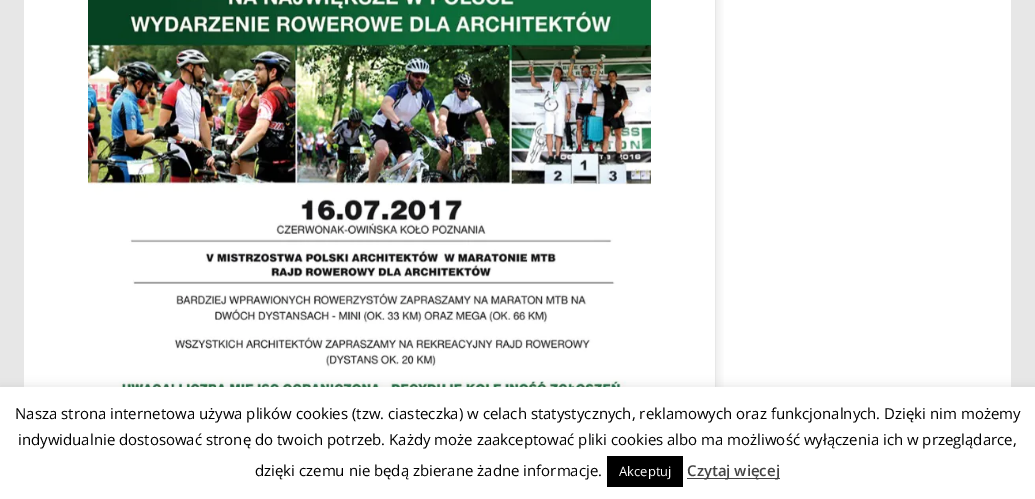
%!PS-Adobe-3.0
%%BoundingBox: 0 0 1035 499
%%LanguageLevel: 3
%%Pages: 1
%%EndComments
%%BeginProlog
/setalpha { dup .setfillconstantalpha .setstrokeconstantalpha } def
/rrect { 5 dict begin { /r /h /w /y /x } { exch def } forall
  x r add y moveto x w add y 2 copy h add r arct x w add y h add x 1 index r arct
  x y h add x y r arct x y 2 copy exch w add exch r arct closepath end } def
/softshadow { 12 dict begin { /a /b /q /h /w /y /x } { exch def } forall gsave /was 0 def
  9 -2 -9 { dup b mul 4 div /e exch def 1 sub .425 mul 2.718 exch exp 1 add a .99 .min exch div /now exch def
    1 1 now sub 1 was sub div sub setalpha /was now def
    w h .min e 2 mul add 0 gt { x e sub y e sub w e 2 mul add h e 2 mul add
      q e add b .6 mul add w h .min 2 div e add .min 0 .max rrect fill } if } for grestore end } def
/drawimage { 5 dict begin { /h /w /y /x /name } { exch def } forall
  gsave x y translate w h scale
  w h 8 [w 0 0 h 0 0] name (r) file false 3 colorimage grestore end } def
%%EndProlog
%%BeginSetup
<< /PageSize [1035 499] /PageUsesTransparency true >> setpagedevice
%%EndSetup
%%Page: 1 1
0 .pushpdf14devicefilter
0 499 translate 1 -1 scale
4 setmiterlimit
0.906 setgray
0 0 1035 499 rectfill
1 setgray
24 0 691 387 rectfill
(images/1.raw) 88 0 563 387 drawimage
725 0 286 387 rectfill
gsave newpath 716 0 moveto 725 0 lineto 725 387 lineto 716 387 lineto closepath clip newpath
<< /ShadingType 2 /ColorSpace /DeviceRGB /Coords [716 -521 725 -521] /Extend [true true] /Function << /FunctionType 2 /Domain [0 1] /C0 [0.941 0.941 0.941] /C1 [1 1 1] /N 1 >> >> shfill grestore
0.675 0.671 0.671 setrgbcolor
0 386 1035 112 0 5 0.3 softshadow
1 setgray
0 387 1035 112 rectfill
0 setgray
607 456 76 31 rectfill
0.267 setgray
687 478 93 1 rectfill
/OpenSans-Regular [15 0 0 -15 0 0] selectfont
0 setgray
15 419 moveto (Nasza strona internetowa używa plików cookies \(tzw. ciasteczka\) w celach statystycznych, reklamowych oraz funkcjonalnych. Dzięki nim możemy) show
18 445 moveto (indywidualnie dostosować stronę do twoich potrzeb. Każdy może zaakceptować pliki cookies albo ma możliwość wyłączenia ich w przeglądarce,) show
255 476 moveto (dzięki czemu nie będą zbierane żadne informacje.) show
/OpenSans-Regular [13 0 0 -13 0 0] selectfont
1 setgray
619 476 moveto (Akceptuj) show
/OpenSans-SemiBold [15 0 0 -15 0 0] selectfont
0.267 setgray
687 476 moveto (Czytaj więcej) show
.poppdf14devicefilter showpage
%%EOF
